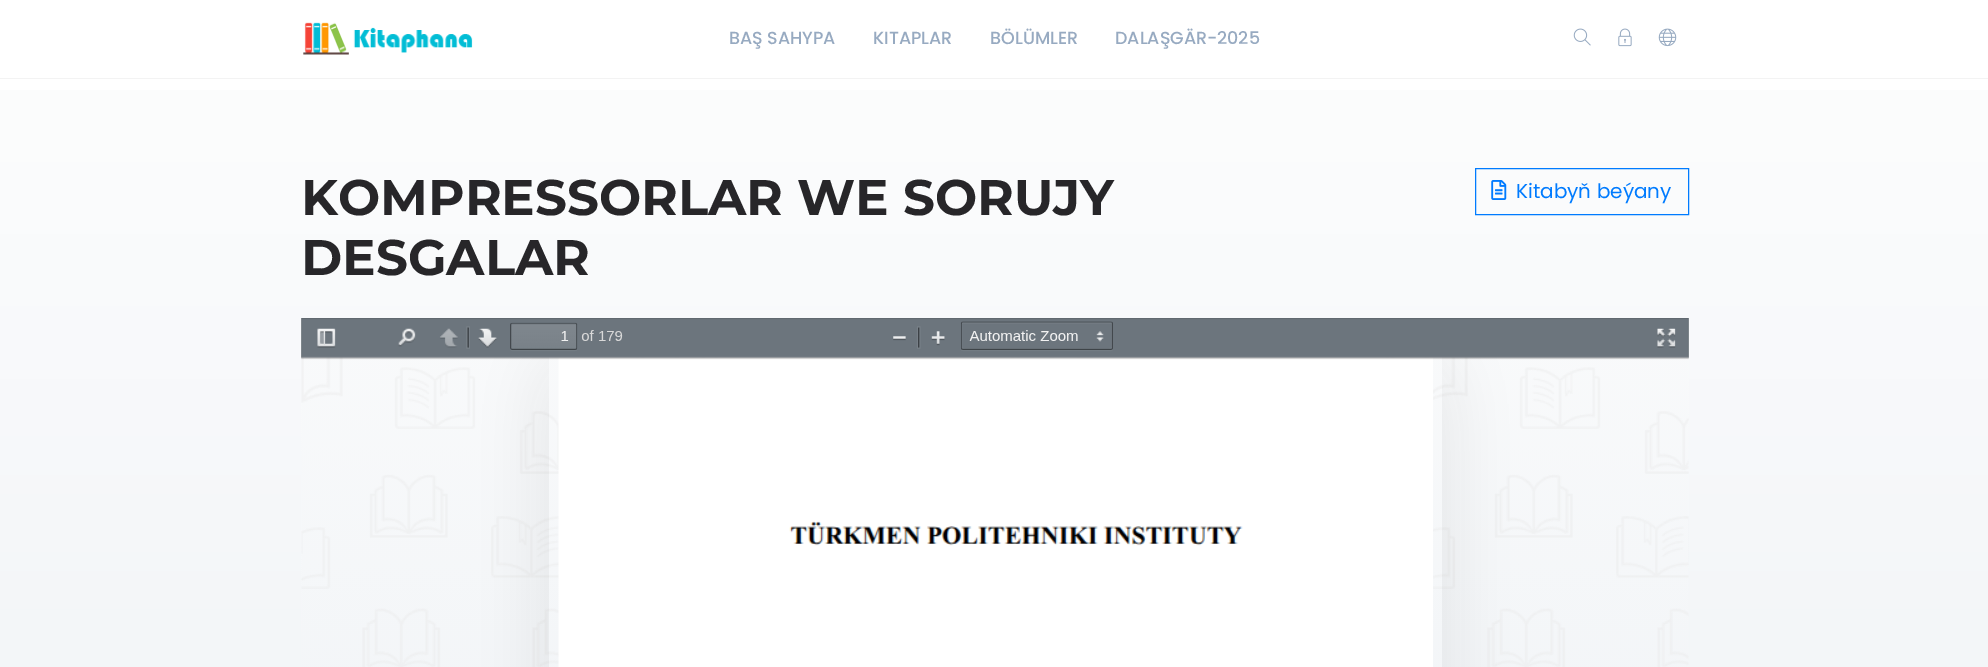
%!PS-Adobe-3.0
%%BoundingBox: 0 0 1988 667
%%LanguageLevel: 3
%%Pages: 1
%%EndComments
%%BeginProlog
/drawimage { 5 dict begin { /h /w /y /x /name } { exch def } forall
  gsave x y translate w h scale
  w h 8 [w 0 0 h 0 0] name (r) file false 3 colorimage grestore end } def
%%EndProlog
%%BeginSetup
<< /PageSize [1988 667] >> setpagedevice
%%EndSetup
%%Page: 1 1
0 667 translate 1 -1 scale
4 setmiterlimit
1 setgray
0 0 1988 667 rectfill
gsave newpath 0 90 moveto 1988 90 lineto 1988 667 lineto 0 667 lineto closepath clip newpath
<< /ShadingType 2 /ColorSpace /DeviceRGB /Coords [994 0 994 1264] /Extend [true true] /Function << /FunctionType 2 /Domain [0 1] /C0 [0.996 0.996 0.996] /C1 [0.914 0.933 0.953] /N 1 >> >> shfill grestore
0.953 setgray
0 78 1988 1 rectfill
(images/1.raw) 303 22 170 33 drawimage
(images/2.raw) 1573 28 18 18 drawimage
(images/3.raw) 1618 28 14 19 drawimage
(images/4.raw) 1658 28 19 19 drawimage
0 0.482 1 setrgbcolor
1475.5 168.5 213 46 rectstroke
(images/5.raw) 1491 180 16 20 drawimage
(images/6.raw) 301 318 1388 349 drawimage
/Poppins-Medium [17.5 0 0 -17.5 0 0] selectfont
0.592 0.667 0.757 setrgbcolor
729 44 moveto (BAŞ SAHYPA) show
873 44 moveto (KITAPLAR) show
990 44 moveto (BÖLÜMLER) show
1115 44 moveto (DALAŞGÄR-2025) show
/Montserrat-Bold [50 0 0 -50 0 0] selectfont
0.153 0.149 0.161 setrgbcolor
301 215 moveto (KOMPRESSORLAR WE SORUJY) show
301 275 moveto (DESGALAR) show
/Poppins-Regular [20 0 0 -20 0 0] selectfont
0 0.482 1 setrgbcolor
1516 198 moveto (Kitabyň beýany) show
showpage
%%EOF
